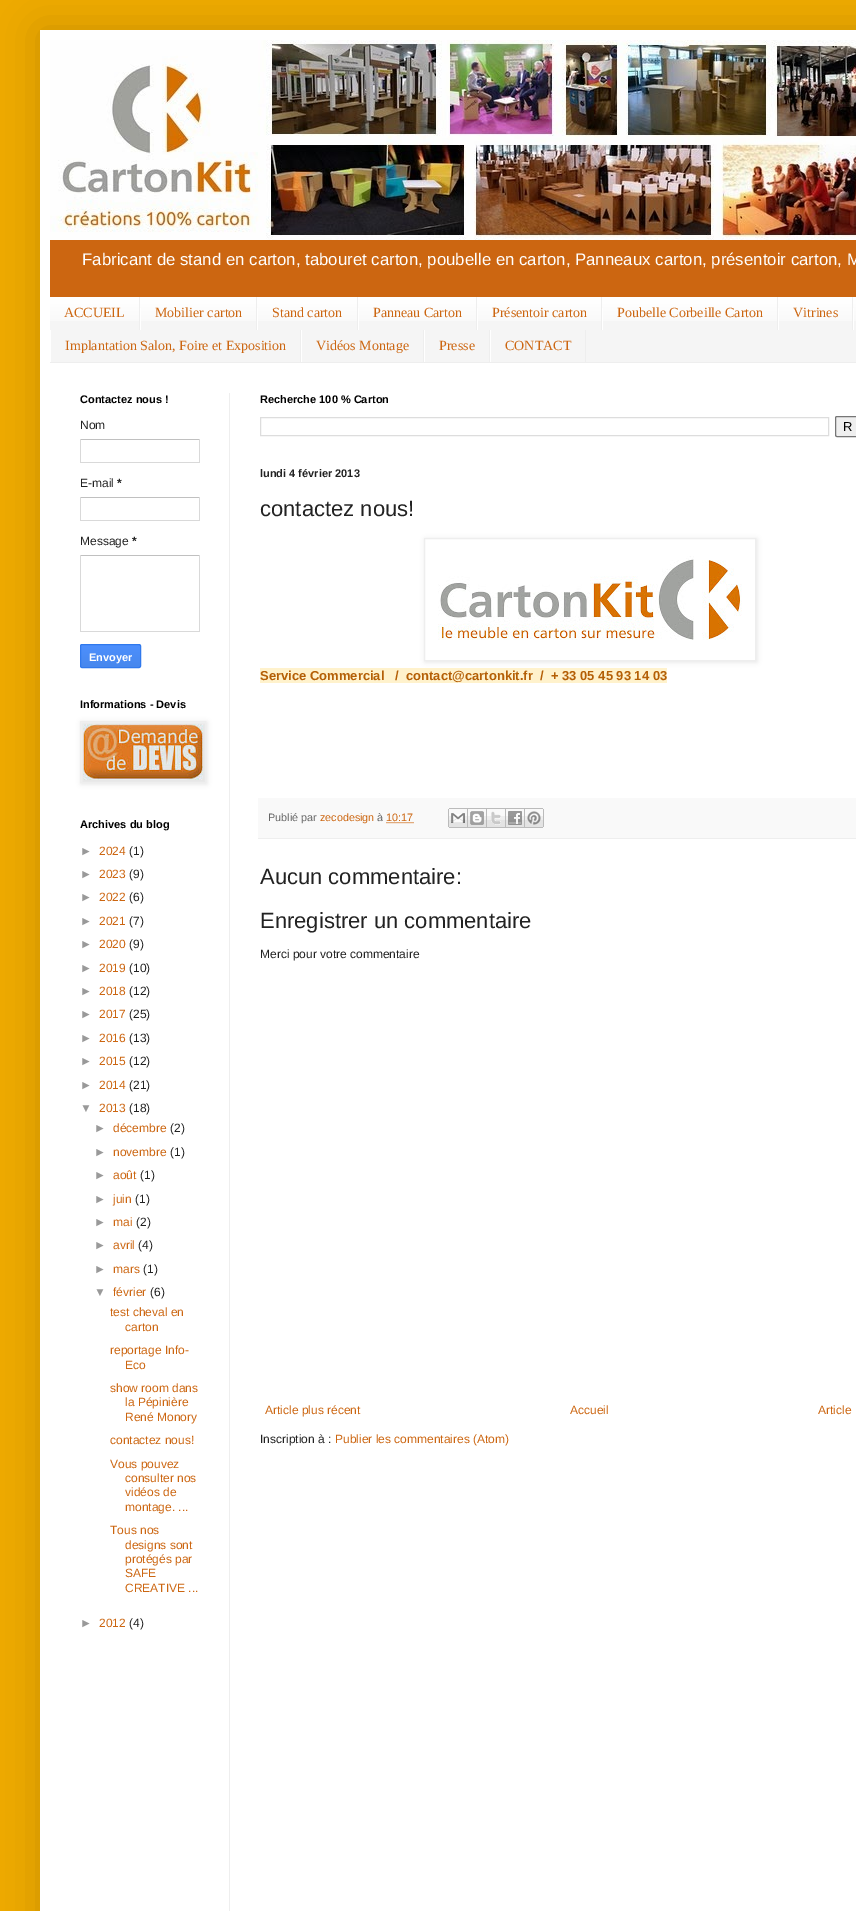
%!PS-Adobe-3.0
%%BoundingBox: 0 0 856 1911
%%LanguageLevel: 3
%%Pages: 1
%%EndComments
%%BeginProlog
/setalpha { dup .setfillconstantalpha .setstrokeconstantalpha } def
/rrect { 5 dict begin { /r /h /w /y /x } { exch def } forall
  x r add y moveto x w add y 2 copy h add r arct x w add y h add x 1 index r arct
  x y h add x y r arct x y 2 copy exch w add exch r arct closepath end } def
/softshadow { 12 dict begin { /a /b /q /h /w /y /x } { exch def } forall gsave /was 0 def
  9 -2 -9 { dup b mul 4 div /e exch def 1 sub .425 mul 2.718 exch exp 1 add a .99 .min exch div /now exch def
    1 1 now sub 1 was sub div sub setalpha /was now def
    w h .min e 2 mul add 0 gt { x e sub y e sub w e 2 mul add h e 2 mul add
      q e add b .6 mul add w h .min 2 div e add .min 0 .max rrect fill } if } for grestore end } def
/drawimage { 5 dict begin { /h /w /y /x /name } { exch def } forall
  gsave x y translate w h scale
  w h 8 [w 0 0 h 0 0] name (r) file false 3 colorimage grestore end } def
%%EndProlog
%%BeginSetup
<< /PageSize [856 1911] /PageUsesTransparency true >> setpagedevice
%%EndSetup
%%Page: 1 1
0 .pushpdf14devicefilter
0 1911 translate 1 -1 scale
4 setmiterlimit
0.933 0.667 0 setrgbcolor
0 0 856 1911 rectfill
0 setgray
40 30 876 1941 0 20 0.15 softshadow
1 setgray
40 30 816 1881 rectfill
0.8 0.4 0.067 setrgbcolor
50 240 806 57 rectfill
(images/1.raw) 50 40 806 200 drawimage
0.961 setgray
50 298 806 64 rectfill
(images/2.raw) 50 297 806 24 drawimage
0.933 setgray
50 362 806 1 rectfill
139 297 1 33 rectfill
256 297 1 33 rectfill
1 setgray
140 308 1 22 rectfill
0.933 setgray
357 297 1 33 rectfill
1 setgray
257 308 1 22 rectfill
0.933 setgray
476 297 1 33 rectfill
1 setgray
358 308 1 22 rectfill
0.933 setgray
601 297 1 33 rectfill
1 setgray
477 308 1 22 rectfill
0.933 setgray
777 297 1 33 rectfill
1 setgray
602 308 1 22 rectfill
0.933 setgray
852 297 1 33 rectfill
1 setgray
778 308 1 22 rectfill
853 308 1 22 rectfill
0.933 setgray
300 330 1 32 rectfill
1 setgray
50 330 1 32 rectfill
0.933 setgray
423 330 1 32 rectfill
1 setgray
301 330 1 32 rectfill
0.933 setgray
489 330 1 32 rectfill
1 setgray
424 330 1 32 rectfill
0.933 setgray
585 330 1 32 rectfill
1 setgray
490 330 1 32 rectfill
0.933 setgray
229 393 1 1518 rectfill
0.753 setgray
80 439 120 1 rectfill
0.851 setgray
199 439 1 24 rectfill
80 462 120 1 rectfill
80 439 1 24 rectfill
0.753 setgray
80 497 120 1 rectfill
0.851 setgray
199 497 1 24 rectfill
80 520 120 1 rectfill
80 497 1 24 rectfill
0.753 setgray
80 555 120 1 rectfill
0.851 setgray
199 555 1 77 rectfill
80 631 120 1 rectfill
80 555 1 77 rectfill
gsave
80 644 61 24 2 rrect clip newpath
gsave newpath 80 645 moveto 141 645 lineto 141 667 lineto 80 667 lineto closepath clip newpath
<< /ShadingType 2 /ColorSpace /DeviceRGB /Coords [111 645 111 667] /Extend [true true] /Function << /FunctionType 2 /Domain [0 1] /C0 [0.302 0.565 0.996] /C1 [0.278 0.529 0.929] /N 1 >> >> shfill grestore
grestore
0.188 0.475 0.929 setrgbcolor
80.5 644.5 60 23 1.5 rrect stroke
0 setgray
81 722 126 62 0 2.5 0.1 softshadow
0.933 setgray
80.5 721.5 125 61 rectstroke
(images/3.raw) 83 724 120 56 drawimage
0.867 setgray
260.5 417.5 568 18 rectstroke
0.937 setgray
835.5 416.5 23 20 1.5 rrect gsave fill grestore
0.463 setgray
stroke
1 0.949 0.8 setrgbcolor
260 668 407 15 rectfill
gsave
newpath 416 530 moveto 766 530 lineto 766 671 lineto 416 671 lineto closepath 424 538 moveto 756 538 lineto 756 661 lineto 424 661 lineto closepath eoclip newpath
0 setgray
425 539 332 123 0 2.5 0.1 softshadow
grestore
0.933 setgray
424.5 538.5 331 122 rectstroke
(images/4.raw) 438 556 304 84 drawimage
0.976 setgray
258 798 598 40 rectfill
0.933 setgray
258 838 598 1 rectfill
0.8 0.4 0.067 setrgbcolor
[1 1] 0 setdash
newpath 386.5 822.5 moveto 413.5 822.5 lineto stroke
(images/5.raw) 448 808 20 20 drawimage
(images/6.raw) 468 808 19 20 drawimage
(images/7.raw) 487 808 19 20 drawimage
(images/8.raw) 506 808 19 20 drawimage
(images/9.raw) 525 808 19 20 drawimage
/LiberationSans-Regular [16.8 0 0 -16.8 0 0] selectfont
1 setgray
82 265 moveto (Fabricant de stand en carton, tabouret carton, poubelle en carton, Panneaux carton, présentoir carton, M) show
/LiberationSerif-Regular [14 0 0 -14 0 0] selectfont
0.8 0.4 0.067 setrgbcolor
64 317 moveto (ACCUEIL) show
155 317 moveto (Mobilier carton) show
272 317 moveto (Stand carton) show
373 317 moveto (Panneau Carton) show
492 317 moveto (Présentoir carton) show
617 317 moveto (Poubelle Corbeille Carton) show
793 317 moveto (Vitrines) show
65 350 moveto (Implantation Salon, Foire et Exposition) show
316 350 moveto (Vidéos Montage) show
439 350 moveto (Presse) show
505 350 moveto (CONTACT) show
/LiberationSans-Bold [11 0 0 -11 0 0] selectfont
0 setgray
80 403 moveto (Contactez nous !) show
/LiberationSans-Regular [12 0 0 -12 0 0] selectfont
0.133 setgray
80 429 moveto (Nom) show
80 487 moveto (E-mail) show
/LiberationSans-Bold [12 0 0 -12 0 0] selectfont
117 487 moveto (*) show
/LiberationSans-Regular [12 0 0 -12 0 0] selectfont
80 545 moveto (Message) show
/LiberationSans-Bold [12 0 0 -12 0 0] selectfont
132 545 moveto (*) show
/LiberationSans-Bold [11 0 0 -11 0 0] selectfont
1 setgray
89 661 moveto (Envoyer) show
0 setgray
80 708 moveto (Informations - Devis) show
80 828 moveto (Archives du blog) show
/LiberationSans-Regular [12 0 0 -12 0 0] selectfont
0.6 setgray
80 855 moveto (►) show
0.8 0.4 0.067 setrgbcolor
99 855 moveto (2024) show
0.133 setgray
129 855 moveto (\(1\)) show
0.6 setgray
80 878 moveto (►) show
0.8 0.4 0.067 setrgbcolor
99 878 moveto (2023) show
0.133 setgray
129 878 moveto (\(9\)) show
0.6 setgray
80 901 moveto (►) show
0.8 0.4 0.067 setrgbcolor
99 901 moveto (2022) show
0.133 setgray
129 901 moveto (\(6\)) show
0.6 setgray
80 925 moveto (►) show
0.8 0.4 0.067 setrgbcolor
99 925 moveto (2021) show
0.133 setgray
129 925 moveto (\(7\)) show
0.6 setgray
80 948 moveto (►) show
0.8 0.4 0.067 setrgbcolor
99 948 moveto (2020) show
0.133 setgray
129 948 moveto (\(9\)) show
0.6 setgray
80 972 moveto (►) show
0.8 0.4 0.067 setrgbcolor
99 972 moveto (2019) show
0.133 setgray
129 972 moveto (\(10\)) show
0.6 setgray
80 995 moveto (►) show
0.8 0.4 0.067 setrgbcolor
99 995 moveto (2018) show
0.133 setgray
129 995 moveto (\(12\)) show
0.6 setgray
80 1018 moveto (►) show
0.8 0.4 0.067 setrgbcolor
99 1018 moveto (2017) show
0.133 setgray
129 1018 moveto (\(25\)) show
0.6 setgray
80 1042 moveto (►) show
0.8 0.4 0.067 setrgbcolor
99 1042 moveto (2016) show
0.133 setgray
129 1042 moveto (\(13\)) show
0.6 setgray
80 1065 moveto (►) show
0.8 0.4 0.067 setrgbcolor
99 1065 moveto (2015) show
0.133 setgray
129 1065 moveto (\(12\)) show
0.6 setgray
80 1089 moveto (►) show
0.8 0.4 0.067 setrgbcolor
99 1089 moveto (2014) show
0.133 setgray
129 1089 moveto (\(21\)) show
0.6 setgray
80 1112 moveto (▼) show
0.8 0.4 0.067 setrgbcolor
99 1112 moveto (2013) show
0.133 setgray
129 1112 moveto (\(18\)) show
0.6 setgray
94 1132 moveto (►) show
0.8 0.4 0.067 setrgbcolor
113 1132 moveto (décembre) show
0.133 setgray
170 1132 moveto (\(2\)) show
0.6 setgray
94 1156 moveto (►) show
0.8 0.4 0.067 setrgbcolor
113 1156 moveto (novembre) show
0.133 setgray
170 1156 moveto (\(1\)) show
0.6 setgray
94 1179 moveto (►) show
0.8 0.4 0.067 setrgbcolor
113 1179 moveto (août) show
0.133 setgray
140 1179 moveto (\(1\)) show
0.6 setgray
94 1203 moveto (►) show
0.8 0.4 0.067 setrgbcolor
113 1203 moveto (juin) show
0.133 setgray
135 1203 moveto (\(1\)) show
0.6 setgray
94 1226 moveto (►) show
0.8 0.4 0.067 setrgbcolor
113 1226 moveto (mai) show
0.133 setgray
136 1226 moveto (\(2\)) show
0.6 setgray
94 1249 moveto (►) show
0.8 0.4 0.067 setrgbcolor
113 1249 moveto (avril) show
0.133 setgray
138 1249 moveto (\(4\)) show
0.6 setgray
94 1273 moveto (►) show
0.8 0.4 0.067 setrgbcolor
113 1273 moveto (mars) show
0.133 setgray
143 1273 moveto (\(1\)) show
0.6 setgray
94 1296 moveto (▼) show
0.8 0.4 0.067 setrgbcolor
113 1296 moveto (février) show
0.133 setgray
150 1296 moveto (\(6\)) show
0.8 0.4 0.067 setrgbcolor
110 1316 moveto (test cheval en) show
125 1331 moveto (carton) show
110 1354 moveto (reportage Info-) show
125 1369 moveto (Eco) show
110 1392 moveto (show room dans) show
125 1406 moveto (la Pépinière) show
125 1421 moveto (René Monory) show
110 1444 moveto (contactez nous!) show
110 1468 moveto (Vous pouvez) show
125 1482 moveto (consulter nos) show
125 1496 moveto (vidéos de) show
125 1511 moveto (montage. ...) show
110 1534 moveto (Tous nos) show
125 1549 moveto (designs sont) show
125 1563 moveto (protégés par) show
125 1577 moveto (SAFE) show
125 1592 moveto (CREATIVE ...) show
0.6 setgray
80 1627 moveto (►) show
0.8 0.4 0.067 setrgbcolor
99 1627 moveto (2012) show
0.133 setgray
129 1627 moveto (\(4\)) show
/LiberationSans-Bold [11 0 0 -11 0 0] selectfont
0 setgray
260 403 moveto (Recherche 100 % Carton) show
/LiberationSans-Regular [13 0 0 -13 0 0] selectfont
843 431 moveto (R) show
/LiberationSans-Bold [11 0 0 -11 0 0] selectfont
0.133 setgray
260 477 moveto (lundi 4 février 2013) show
/LiberationSans-Regular [22 0 0 -22 0 0] selectfont
260 516 moveto (contactez nous!) show
/LiberationSans-Bold [13 0 0 -13 0 0] selectfont
0.706 0.373 0.024 setrgbcolor
260 680 moveto (Service Commercial) show
395 680 moveto (/) show
406 680 moveto (contact@cartonkit.fr) show
540 680 moveto (/) show
551 680 moveto (+ 33 05 45 93 14 03) show
/LiberationSans-Regular [10.75 0 0 -10.75 0 0] selectfont
0.4 setgray
268 821 moveto (Publié par) show
0.8 0.4 0.067 setrgbcolor
320 821 moveto (zecodesign) show
0.4 setgray
377 821 moveto (à) show
0.8 0.4 0.067 setrgbcolor
386 821 moveto (10:17) show
/LiberationSans-Regular [22 0 0 -22 0 0] selectfont
0.133 setgray
260 884 moveto (Aucun commentaire:) show
260 928 moveto (Enregistrer un commentaire) show
/LiberationSans-Regular [12 0 0 -12 0 0] selectfont
260 958 moveto (Merci pour votre commentaire) show
0.8 0.4 0.067 setrgbcolor
265 1414 moveto (Article plus récent) show
570 1414 moveto (Accueil) show
818 1414 moveto (Article) show
0.133 setgray
260 1443 moveto (Inscription à :) show
0.8 0.4 0.067 setrgbcolor
335 1443 moveto (Publier les commentaires \(Atom\)) show
.poppdf14devicefilter showpage
%%EOF
